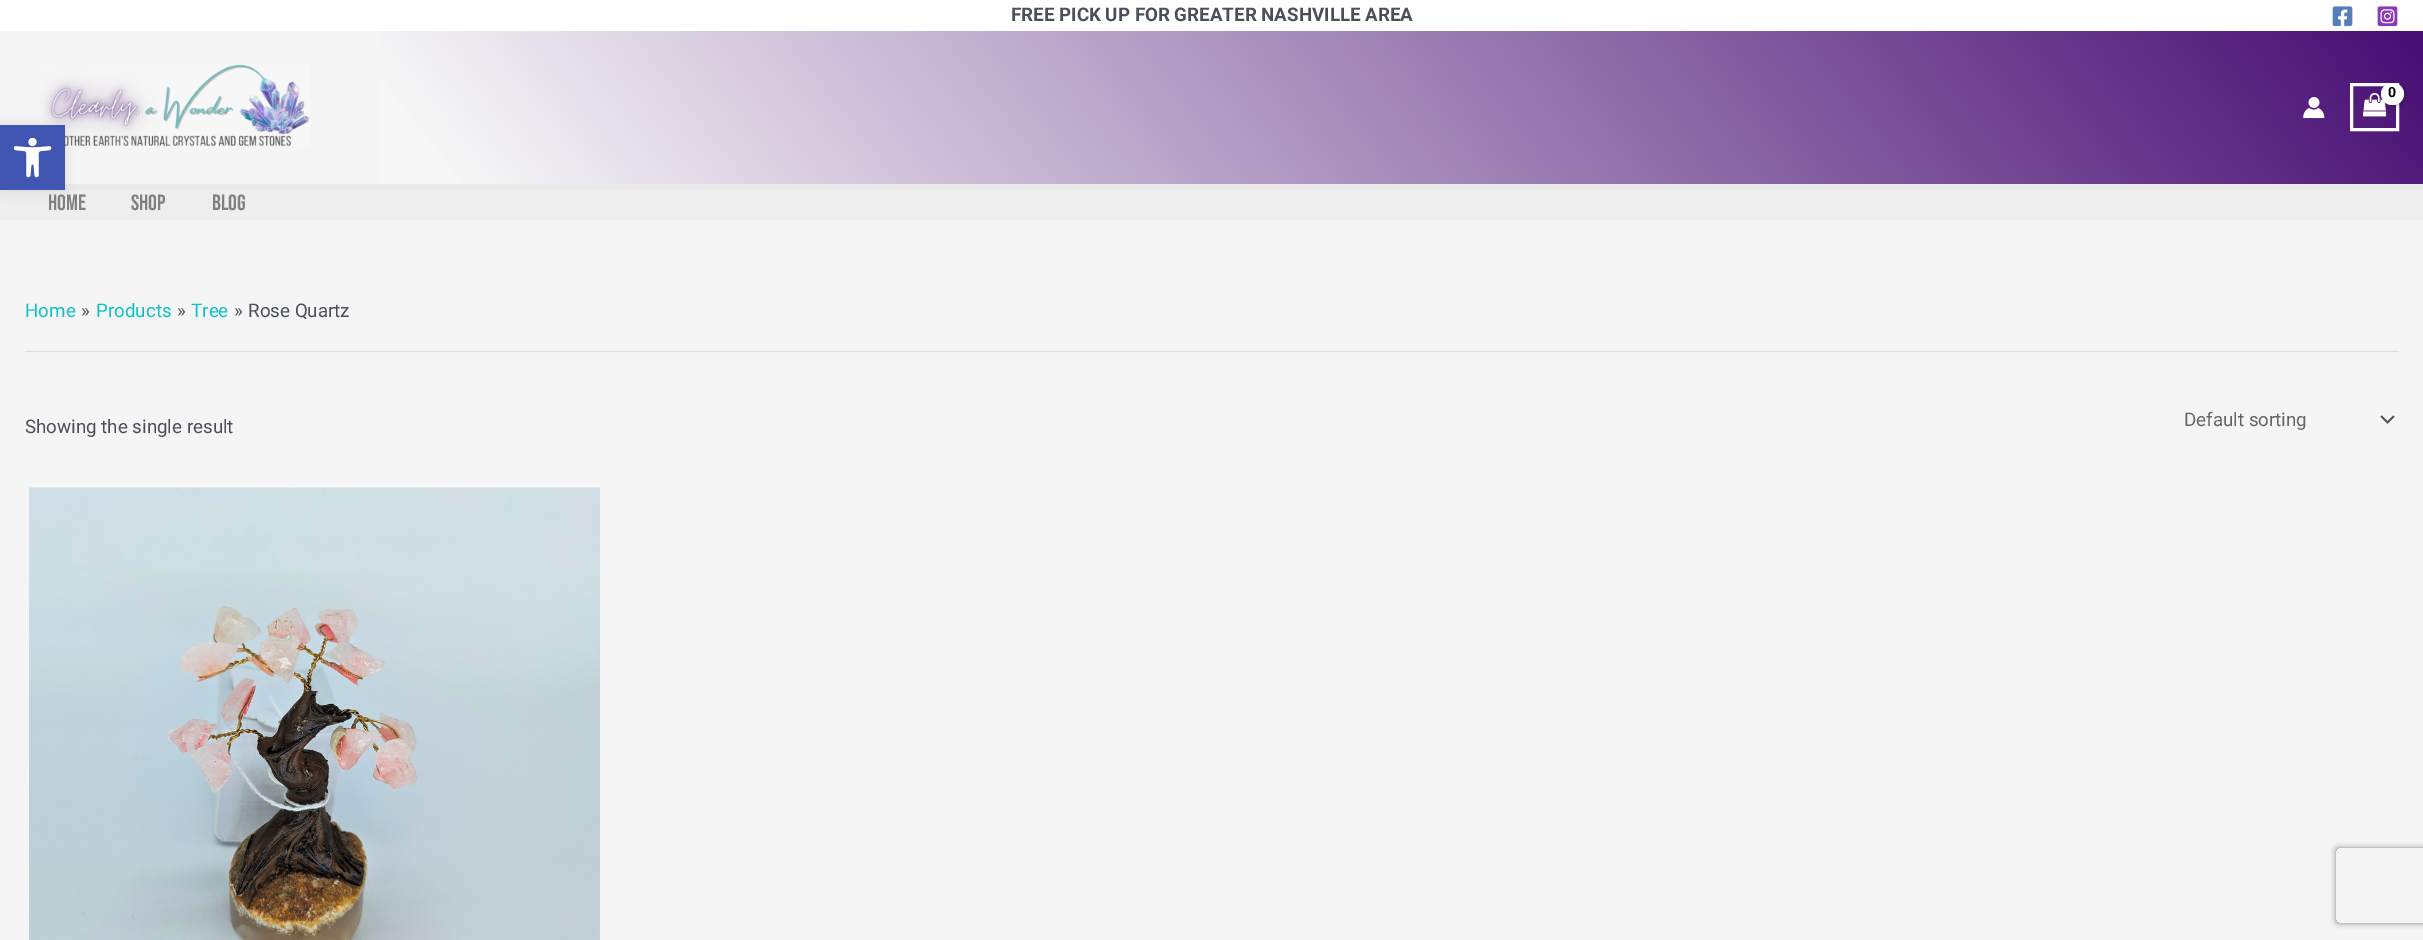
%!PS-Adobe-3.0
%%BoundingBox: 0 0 2423 940
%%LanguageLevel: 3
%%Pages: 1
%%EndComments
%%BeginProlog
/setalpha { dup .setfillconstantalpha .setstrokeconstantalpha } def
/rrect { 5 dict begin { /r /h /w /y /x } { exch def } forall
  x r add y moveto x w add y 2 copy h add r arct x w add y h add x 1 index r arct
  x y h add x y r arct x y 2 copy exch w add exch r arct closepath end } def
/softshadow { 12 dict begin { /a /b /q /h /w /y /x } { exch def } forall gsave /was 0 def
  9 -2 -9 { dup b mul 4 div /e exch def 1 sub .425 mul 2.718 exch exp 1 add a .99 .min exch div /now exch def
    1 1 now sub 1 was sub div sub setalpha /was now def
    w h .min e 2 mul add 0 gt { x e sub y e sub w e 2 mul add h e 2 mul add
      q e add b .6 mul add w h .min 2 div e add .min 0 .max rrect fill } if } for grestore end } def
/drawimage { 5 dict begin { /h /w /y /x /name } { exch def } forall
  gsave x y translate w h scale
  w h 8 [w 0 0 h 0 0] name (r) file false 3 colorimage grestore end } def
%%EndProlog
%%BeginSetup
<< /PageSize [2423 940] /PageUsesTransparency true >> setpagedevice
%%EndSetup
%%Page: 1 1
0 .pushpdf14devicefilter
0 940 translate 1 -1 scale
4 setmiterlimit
0.961 setgray
0 0 2423 940 rectfill
1 setgray
0 0 2423 31 rectfill
(images/1.raw) 2332 6 21 21 drawimage
(images/2.raw) 2377 6 21 21 drawimage
gsave newpath 379 31 moveto 2423 31 lineto 2423 184 lineto 379 184 lineto closepath clip newpath
<< /ShadingType 2 /ColorSpace /DeviceRGB /Coords [422 724 2001 -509] /Extend [true true] /Function << /FunctionType 3 /Domain [0 1] /Functions [<< /FunctionType 2 /Domain [0 1] /C0 [0.969 0.969 0.969] /C1 [0.969 0.969 0.969] /N 1 >> << /FunctionType 2 /Domain [0 1] /C0 [0.969 0.969 0.969] /C1 [0.278 0.055 0.451] /N 1 >>] /Bounds [0.18] /Encode [0 1 0 1] >> >> shfill grestore
0.918 setgray
65 184 2358 6 rectfill
(images/3.raw) 40 64 270 83 drawimage
1 setgray
3 setlinewidth
2351.5 84.5 46 45 rectstroke
(images/4.raw) 2363 93 23 24 drawimage
0 setgray
2383 84 22 22 11 2 0.3 softshadow
1 setgray
2381 83 23 22 11 rrect fill
(images/5.raw) 2303 97 22 22 drawimage
0.933 setgray
0 190 2423 30 rectfill
0.867 setgray
25 351 2374 1 rectfill
(images/6.raw) 2380 415 15 9 drawimage
(images/7.raw) 29 487 571 453 drawimage
0 setgray
0 125 65 65 0 6 0.1 softshadow
0.251 0.329 0.698 setrgbcolor
0 125 65 65 rectfill
(images/8.raw) 13 138 39 40 drawimage
gsave
newpath 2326 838 moveto 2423 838 lineto 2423 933 lineto 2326 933 lineto closepath 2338.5 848 moveto 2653.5 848 lineto 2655 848 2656 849 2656 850.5 curveto 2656 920.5 lineto 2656 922 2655 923 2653.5 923 curveto 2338.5 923 lineto 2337 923 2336 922 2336 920.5 curveto 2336 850.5 lineto 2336 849 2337 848 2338.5 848 curveto closepath eoclip newpath
0.502 setgray
2336 848 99 75 2.5 3 1 softshadow
grestore
/Roboto-Bold [18.75 0 0 -18.75 0 0] selectfont
0.294 0.31 0.345 setrgbcolor
1011 21 moveto (FREE PICK UP FOR GREATER NASHVILLE AREA) show
/Roboto-Bold [14 0 0 -14 0 0] selectfont
0 setgray
2388 97 moveto -1 0 (0) ashow
/BebasNeue-Regular [22 0 0 -22 0 0] selectfont
0.506 setgray
48 210 moveto (Home) show
131 210 moveto (Shop) show
212 210 moveto (Blog) show
/Roboto-Regular [18.75 0 0 -18.75 0 0] selectfont
0.055 0.761 0.784 setrgbcolor
25 317 moveto (Home) show
0.294 0.31 0.345 setrgbcolor
81 317 moveto (») show
0.055 0.761 0.784 setrgbcolor
96 317 moveto (Products) show
0.294 0.31 0.345 setrgbcolor
177 317 moveto (») show
0.055 0.761 0.784 setrgbcolor
191 317 moveto (Tree) show
0.294 0.31 0.345 setrgbcolor
234 317 moveto (») show
248 317 moveto (Rose Quartz) show
25 433 moveto (Showing the single result) show
0.4 setgray
2184 426 moveto (Default sorting) show
.poppdf14devicefilter showpage
%%EOF
